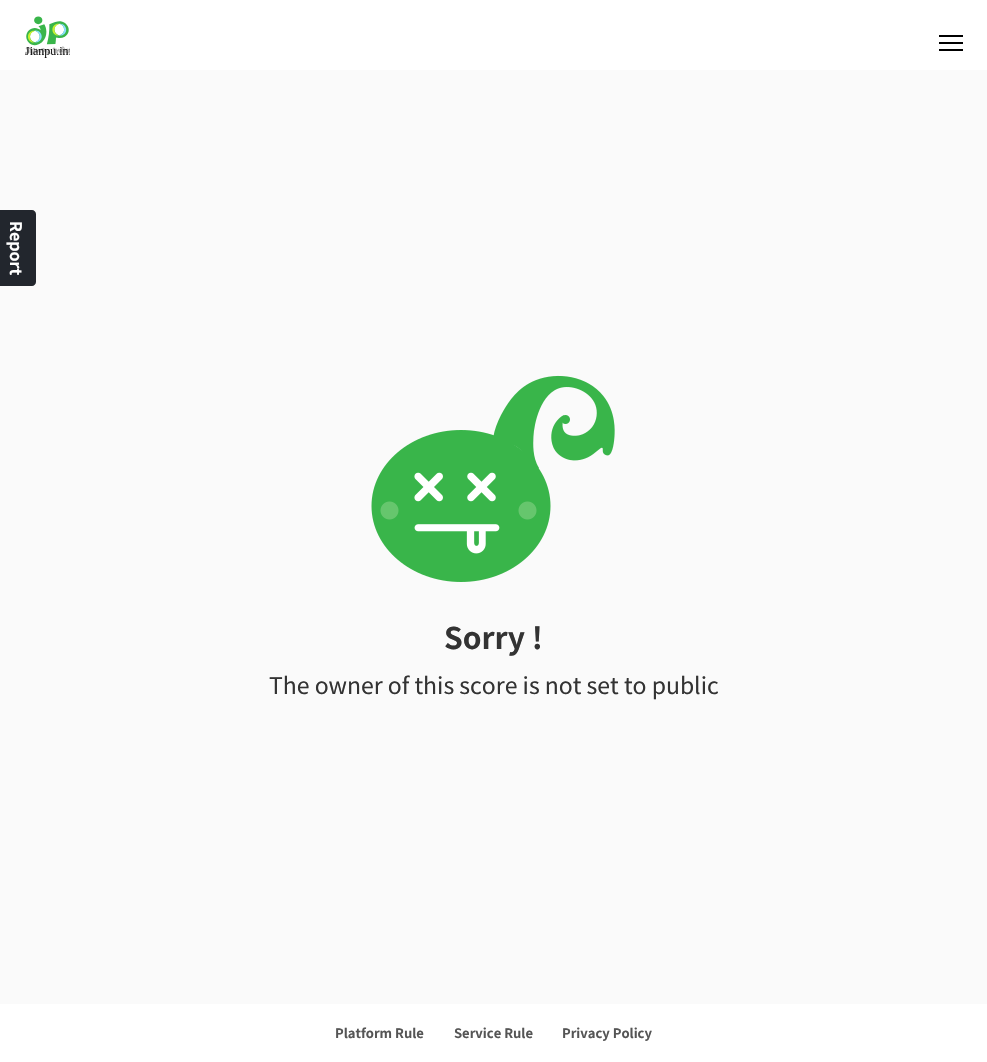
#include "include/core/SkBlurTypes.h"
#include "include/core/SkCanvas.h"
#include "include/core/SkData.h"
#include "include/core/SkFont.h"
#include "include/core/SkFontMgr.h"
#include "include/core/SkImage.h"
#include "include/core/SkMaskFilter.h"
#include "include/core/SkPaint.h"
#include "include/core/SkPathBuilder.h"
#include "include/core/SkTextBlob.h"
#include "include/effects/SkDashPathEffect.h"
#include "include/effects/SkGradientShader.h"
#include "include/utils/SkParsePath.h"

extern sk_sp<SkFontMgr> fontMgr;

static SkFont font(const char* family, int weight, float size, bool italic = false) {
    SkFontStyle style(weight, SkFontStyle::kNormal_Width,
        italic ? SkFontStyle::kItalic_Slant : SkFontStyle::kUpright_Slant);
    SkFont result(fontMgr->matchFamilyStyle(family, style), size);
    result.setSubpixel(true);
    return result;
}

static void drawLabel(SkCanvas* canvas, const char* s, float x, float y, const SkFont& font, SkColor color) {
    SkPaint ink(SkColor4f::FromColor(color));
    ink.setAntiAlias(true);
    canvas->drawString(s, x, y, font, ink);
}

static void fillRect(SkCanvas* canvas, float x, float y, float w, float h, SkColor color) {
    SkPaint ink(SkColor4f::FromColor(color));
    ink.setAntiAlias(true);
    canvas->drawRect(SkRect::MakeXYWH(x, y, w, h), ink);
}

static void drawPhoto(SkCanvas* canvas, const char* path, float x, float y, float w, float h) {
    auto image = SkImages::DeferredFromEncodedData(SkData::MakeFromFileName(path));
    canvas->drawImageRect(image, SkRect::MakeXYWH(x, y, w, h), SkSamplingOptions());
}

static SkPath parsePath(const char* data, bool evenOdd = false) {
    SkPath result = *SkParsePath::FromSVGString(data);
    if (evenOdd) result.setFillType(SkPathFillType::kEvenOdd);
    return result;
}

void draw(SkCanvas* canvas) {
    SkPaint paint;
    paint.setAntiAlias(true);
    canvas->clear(0xFFFFFFFF);
    drawPhoto(canvas, "assets/img1.png", 25, 16, 45, 42);
    fillRect(canvas, 939, 35, 24, 2, 0xFF000000);
    fillRect(canvas, 939, 42, 24, 2, 0xFF000000);
    fillRect(canvas, 939, 49, 24, 2, 0xFF000000);
    fillRect(canvas, 0, 70, 987, 934, 0xFFFAFAFA);
    paint.setColor(0xFF22262D);
    canvas->drawPath(parsePath("M0 210H32C34 210 36 212 36 214V282C36 284 34 286 32 286H0Z"), paint);
    SkFont font1 = font("Noto Sans TC", 700, 16);
    canvas->save();
    canvas->rotate(90, 10, 221);
    drawLabel(canvas, "Report", 10, 221, font1, 0xFFFFFFFF);
    canvas->restore();
    drawPhoto(canvas, "assets/img2.png", 371, 375, 244, 207);
    SkFont font2 = font("Noto Sans TC", 700, 30);
    drawLabel(canvas, "Sorry !", 444, 649, font2, 0xFF333333);
    SkFont font3 = font("Noto Sans TC", 400, 23);
    drawLabel(canvas, "The owner of this score is not set to public", 269, 694, font3, 0xFF333333);
    SkFont font4 = font("Noto Sans TC", 700, 13);
    drawLabel(canvas, "Platform Rule", 335, 1038, font4, 0xFF555555);
    drawLabel(canvas, "Service Rule", 454, 1038, font4, 0xFF555555);
    drawLabel(canvas, "Privacy Policy", 562, 1038, font4, 0xFF555555);
}
